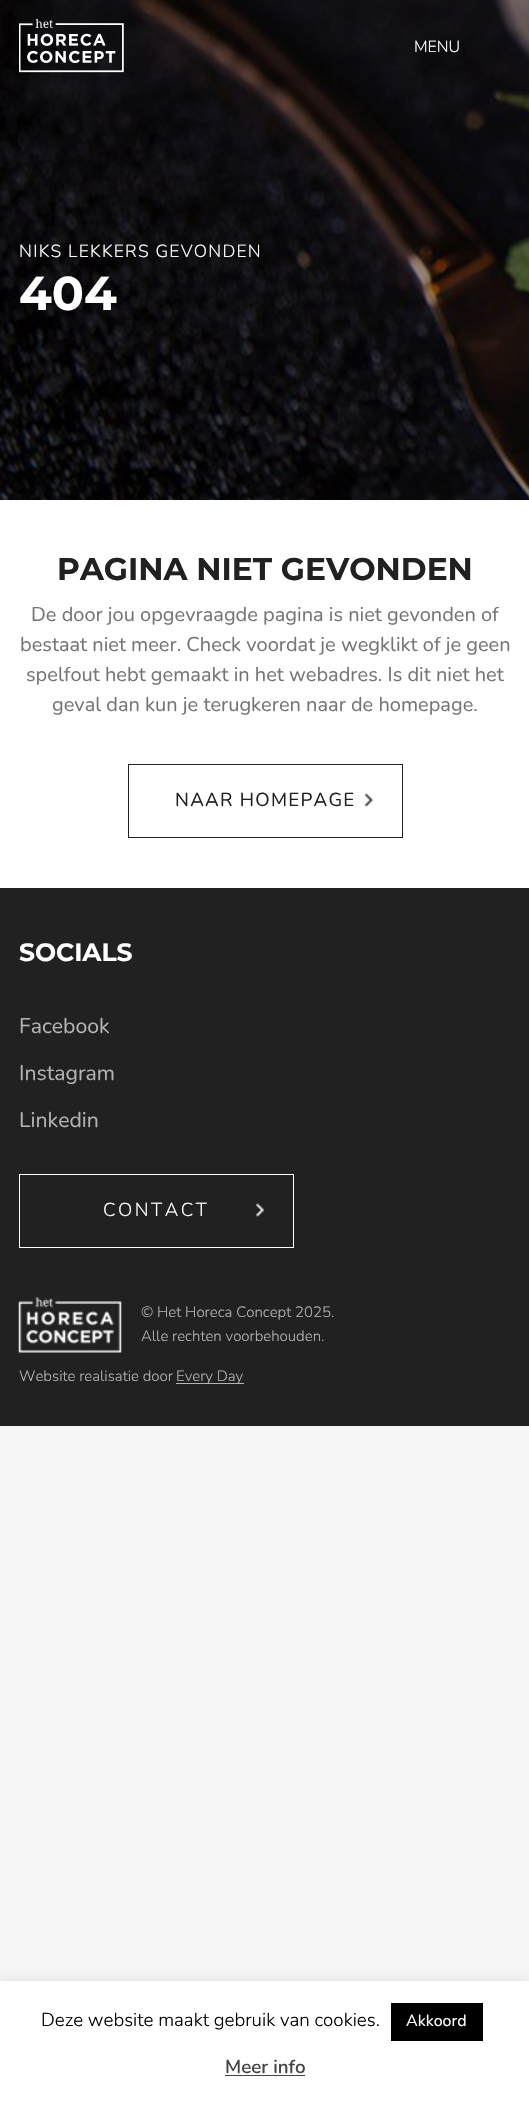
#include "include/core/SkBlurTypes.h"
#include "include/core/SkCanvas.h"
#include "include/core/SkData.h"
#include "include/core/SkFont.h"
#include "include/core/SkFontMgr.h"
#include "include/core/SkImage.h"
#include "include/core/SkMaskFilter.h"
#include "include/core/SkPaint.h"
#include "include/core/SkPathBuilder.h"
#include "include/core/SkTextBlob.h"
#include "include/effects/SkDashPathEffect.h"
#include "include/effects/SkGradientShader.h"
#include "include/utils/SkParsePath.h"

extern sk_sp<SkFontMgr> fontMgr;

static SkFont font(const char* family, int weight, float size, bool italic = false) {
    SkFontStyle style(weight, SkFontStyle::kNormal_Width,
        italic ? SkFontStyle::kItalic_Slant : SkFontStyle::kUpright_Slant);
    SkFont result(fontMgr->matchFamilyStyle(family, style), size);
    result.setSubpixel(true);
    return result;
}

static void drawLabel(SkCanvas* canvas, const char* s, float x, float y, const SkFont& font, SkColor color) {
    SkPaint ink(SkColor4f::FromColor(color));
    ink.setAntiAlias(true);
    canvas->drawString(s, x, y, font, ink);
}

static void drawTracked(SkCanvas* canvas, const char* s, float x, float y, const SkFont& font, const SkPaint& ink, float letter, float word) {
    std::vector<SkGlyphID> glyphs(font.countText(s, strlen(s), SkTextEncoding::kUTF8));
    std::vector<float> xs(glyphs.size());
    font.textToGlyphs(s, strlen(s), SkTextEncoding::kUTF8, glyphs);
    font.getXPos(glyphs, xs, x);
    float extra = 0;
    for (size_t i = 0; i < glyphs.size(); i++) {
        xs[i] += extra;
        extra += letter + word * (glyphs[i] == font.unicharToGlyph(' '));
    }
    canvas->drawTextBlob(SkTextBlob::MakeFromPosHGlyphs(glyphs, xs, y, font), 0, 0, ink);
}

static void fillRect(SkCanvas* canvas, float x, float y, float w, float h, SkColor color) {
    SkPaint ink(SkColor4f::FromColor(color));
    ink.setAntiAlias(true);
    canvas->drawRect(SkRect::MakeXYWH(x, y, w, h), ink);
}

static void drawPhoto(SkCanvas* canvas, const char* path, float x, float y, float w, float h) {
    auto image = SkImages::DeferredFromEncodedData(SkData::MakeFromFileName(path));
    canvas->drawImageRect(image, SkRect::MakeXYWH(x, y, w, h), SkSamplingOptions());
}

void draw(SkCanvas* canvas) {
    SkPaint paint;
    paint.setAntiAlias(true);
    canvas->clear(0xFFF6F6F6);
    fillRect(canvas, 0, 500, 529, 388, 0xFFFFFFFF);
    drawPhoto(canvas, "assets/img2.png", 0, 0, 529, 500);
    drawPhoto(canvas, "assets/img1.png", 19, 19, 105, 54);
    SkFont font1 = font("Nunito", 300, 16);
    drawLabel(canvas, "MENU", 414, 52, font1, 0xFFFFFFFF);
    SkFont font2 = font("Nunito", 300, 17.5f);
    paint.setColor(0xFFFFFFFF);
    drawTracked(canvas, "NIKS LEKKERS GEVONDEN", 19, 257, font2, paint, 1.25f, 0);
    SkFont font3 = font("Montserrat", 700, 47.5f);
    drawLabel(canvas, "404", 19, 310, font3, 0xFFFFFFFF);
    SkFont font4 = font("Montserrat", 700, 31.25f);
    drawLabel(canvas, "PAGINA NIET GEVONDEN", 57, 580, font4, 0xFF212121);
    SkFont font5 = font("Nunito", 400, 20);
    drawLabel(canvas, "De door jou opgevraagde pagina is niet gevonden of", 31, 621, font5, 0xFF757575);
    drawLabel(canvas, "bestaat niet meer. Check voordat je wegklikt of je geen", 20, 651, font5, 0xFF757575);
    drawLabel(canvas, "spelfout hebt gemaakt in het webadres. Is dit niet het", 26, 681, font5, 0xFF757575);
    drawLabel(canvas, "geval dan kun je terugkeren naar de homepage.", 52, 711, font5, 0xFF757575);
    paint.setStroke(true);
    paint.setStrokeWidth(1);
    paint.setColor(0xFF212121);
    canvas->drawRect(SkRect::MakeXYWH(128.5f, 764.5f, 274, 73), paint);
    SkFont font6 = font("Nunito", 400, 18.75f);
    paint.setStroke(false);
    drawTracked(canvas, "NAAR HOMEPAGE", 175, 806, font6, paint, 1.25f, 0);
    drawPhoto(canvas, "assets/img3.png", 364, 793, 9, 14);
    fillRect(canvas, 0, 888, 529, 538, 0xFF212121);
    SkFont font7 = font("Montserrat", 700, 25);
    drawLabel(canvas, "SOCIALS", 19, 961, font7, 0xFFFFFFFF);
    SkFont font8 = font("Nunito", 400, 21.25f);
    drawLabel(canvas, "Facebook", 19, 1033, font8, 0xFFB3B3B3);
    drawLabel(canvas, "Instagram", 19, 1080, font8, 0xFFB3B3B3);
    drawLabel(canvas, "Linkedin", 19, 1127, font8, 0xFFB3B3B3);
    paint.setStroke(true);
    paint.setColor(0xFFFFFFFF);
    canvas->drawRect(SkRect::MakeXYWH(19.5f, 1174.5f, 274, 73), paint);
    SkFont font9 = font("Nunito", 300, 18.75f);
    paint.setStroke(false);
    drawTracked(canvas, "CONTACT", 103, 1216, font9, paint, 2.5f, 0);
    drawPhoto(canvas, "assets/img4.png", 256, 1203, 8, 14);
    drawPhoto(canvas, "assets/img5.png", 18, 1297, 104, 56);
    SkFont font10 = font("Nunito", 300, 15);
    drawLabel(canvas, "© Het Horeca Concept 2025.", 141, 1317, font10, 0xFFB3B3B3);
    drawLabel(canvas, "Alle rechten voorbehouden.", 141, 1341, font10, 0xFFB3B3B3);
    drawLabel(canvas, "Website realisatie door", 19, 1381, font10, 0xFFB3B3B3);
    fillRect(canvas, 176, 1383, 68, 1, 0xFFB3B3B3);
    drawLabel(canvas, "Every Day", 176, 1381, font10, 0xFFB3B3B3);
    paint.setColor(0x4DACABAB);
    paint.setMaskFilter(SkMaskFilter::MakeBlur(kNormal_SkBlurStyle, 6));
    canvas->drawRect(SkRect::MakeXYWH(0, 1980, 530, 121), paint);
    paint.setMaskFilter(nullptr);
    fillRect(canvas, 0, 1981, 529, 121, 0xFFFFFFFF);
    drawLabel(canvas, "Deze website maakt gebruik van cookies.", 41, 2026, font9, 0xFF000000);
    fillRect(canvas, 391, 2003, 92, 38, 0xFF000000);
    SkFont font11 = font("Nunito", 400, 16);
    drawLabel(canvas, "Akkoord", 406, 2026, font11, 0xFFFFFFFF);
    SkFont font12 = font("Nunito", 600, 18.75f);
    drawLabel(canvas, "Meer info", 225, 2073, font12, 0xFF444444);
    fillRect(canvas, 225, 2075, 80, 1, 0xFF444444);
}
